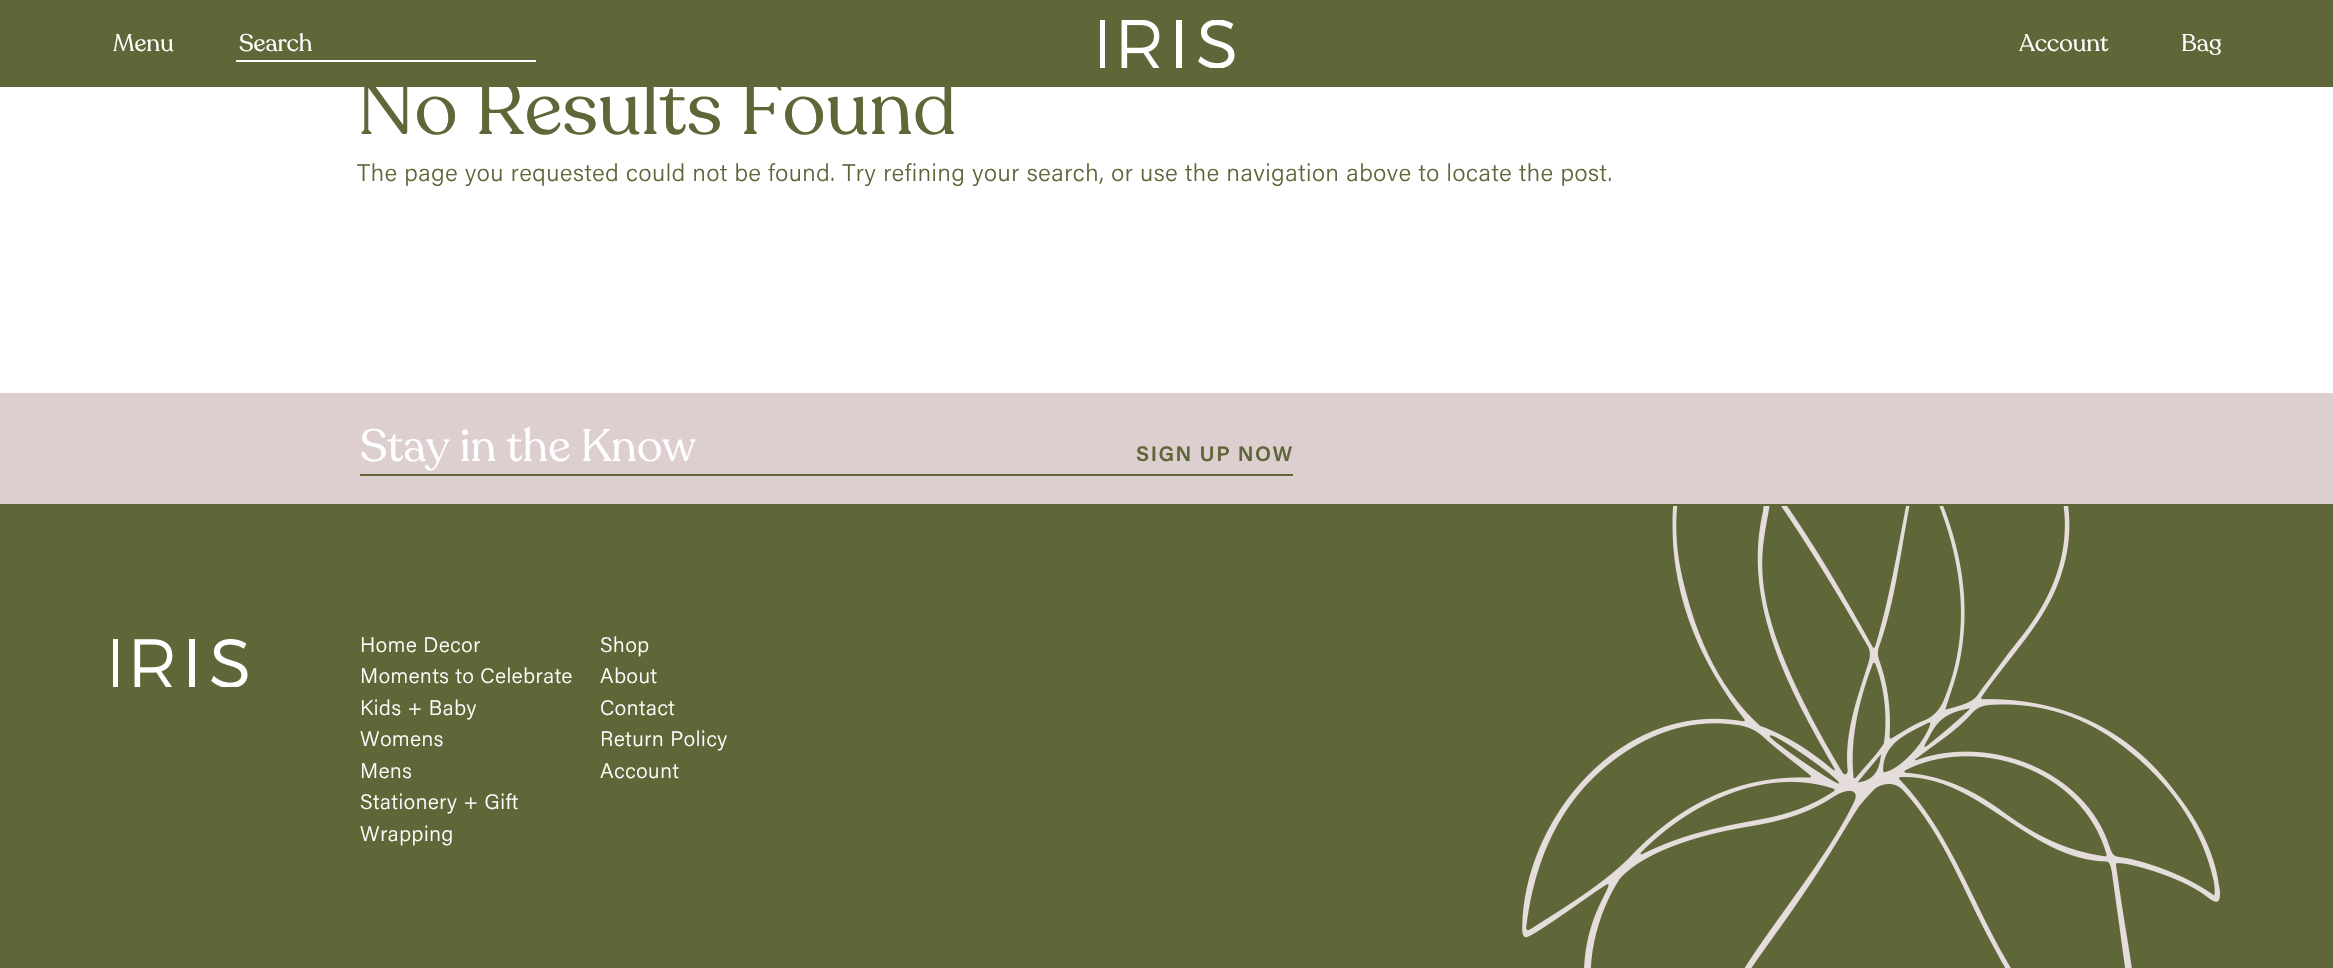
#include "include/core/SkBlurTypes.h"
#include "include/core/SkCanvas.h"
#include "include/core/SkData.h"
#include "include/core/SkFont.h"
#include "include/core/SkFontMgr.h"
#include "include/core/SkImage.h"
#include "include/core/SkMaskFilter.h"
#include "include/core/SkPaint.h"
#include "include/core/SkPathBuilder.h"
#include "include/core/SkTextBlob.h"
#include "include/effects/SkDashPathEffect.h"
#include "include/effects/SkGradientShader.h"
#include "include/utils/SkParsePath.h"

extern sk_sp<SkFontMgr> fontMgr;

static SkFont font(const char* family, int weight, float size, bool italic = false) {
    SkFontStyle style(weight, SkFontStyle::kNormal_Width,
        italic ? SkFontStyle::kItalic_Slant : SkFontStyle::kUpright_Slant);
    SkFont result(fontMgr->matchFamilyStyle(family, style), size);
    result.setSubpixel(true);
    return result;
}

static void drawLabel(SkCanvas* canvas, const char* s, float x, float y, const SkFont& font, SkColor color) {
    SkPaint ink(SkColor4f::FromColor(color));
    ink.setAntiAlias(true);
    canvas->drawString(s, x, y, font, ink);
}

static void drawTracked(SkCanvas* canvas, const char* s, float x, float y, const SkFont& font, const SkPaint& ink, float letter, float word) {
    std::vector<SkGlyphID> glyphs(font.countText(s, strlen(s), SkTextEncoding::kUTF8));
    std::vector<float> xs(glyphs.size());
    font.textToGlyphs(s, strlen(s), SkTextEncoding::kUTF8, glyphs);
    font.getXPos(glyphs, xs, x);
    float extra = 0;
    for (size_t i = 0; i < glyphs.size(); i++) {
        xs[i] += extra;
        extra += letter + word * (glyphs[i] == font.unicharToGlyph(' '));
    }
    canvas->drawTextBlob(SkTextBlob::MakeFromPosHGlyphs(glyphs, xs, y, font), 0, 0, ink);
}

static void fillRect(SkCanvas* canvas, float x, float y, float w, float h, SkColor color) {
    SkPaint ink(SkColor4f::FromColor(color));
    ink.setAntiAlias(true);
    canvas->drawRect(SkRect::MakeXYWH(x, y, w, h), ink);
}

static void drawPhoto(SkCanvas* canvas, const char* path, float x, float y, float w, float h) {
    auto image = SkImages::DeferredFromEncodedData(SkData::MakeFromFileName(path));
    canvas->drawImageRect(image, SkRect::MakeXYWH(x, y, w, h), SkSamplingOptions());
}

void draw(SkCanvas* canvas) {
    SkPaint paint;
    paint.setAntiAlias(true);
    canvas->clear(0xFFFFFFFF);
    fillRect(canvas, 0, 0, 2333, 87, 0xFF5F6638);
    SkFont font1 = font("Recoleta", 400, 24);
    drawLabel(canvas, "Menu", 113, 51, font1, 0xFFFFFFFF);
    fillRect(canvas, 236, 60, 300, 2, 0xFFFFFFFF);
    drawLabel(canvas, "Search", 239, 51, font1, 0xFFFFFFFF);
    drawPhoto(canvas, "assets/img1.png", 1100, 20, 135, 48);
    drawLabel(canvas, "Account", 2019, 51, font1, 0xFFFFFFFF);
    drawLabel(canvas, "Bag", 2181, 51, font1, 0xFFFFFFFF);
    SkFont font2 = font("Recoleta", 400, 76.5f);
    drawLabel(canvas, "No Results Found", 357, 134, font2, 0xFF5F6638);
    SkFont font3 = font("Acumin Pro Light", 300, 24);
    paint.setColor(0xFF5F6638);
    drawTracked(canvas, "The page you requested could not be found. Try refining your search, or use the navigation above to locate the post.", 357, 181, font3, paint, 0.6f, 0);
    fillRect(canvas, 0, 393, 2333, 111, 0xFFDDCFD0);
    fillRect(canvas, 0, 504, 2333, 464, 0xFF5F6638);
    fillRect(canvas, 360, 474, 933, 2, 0xFF5F6638);
    SkFont font4 = font("Recoleta", 400, 45);
    drawLabel(canvas, "Stay in the Know", 360, 461, font4, 0xFFFFFFFF);
    SkFont font5 = font("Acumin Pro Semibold", 600, 21);
    drawTracked(canvas, "SIGN UP NOW", 1136, 461, font5, paint, 1.5f, 0);
    drawPhoto(canvas, "assets/img2.png", 1522, 506, 698, 462);
    drawPhoto(canvas, "assets/img3.png", 113, 639, 135, 48);
    SkFont font6 = font("Acumin Pro Light", 300, 21);
    paint.setColor(0xFFFFFFFF);
    drawTracked(canvas, "Home Decor", 360, 652, font6, paint, 0.6f, 0);
    drawTracked(canvas, "Moments to Celebrate", 360, 683, font6, paint, 0.6f, 0);
    drawTracked(canvas, "Kids + Baby", 360, 715, font6, paint, 0.6f, 0);
    drawTracked(canvas, "Womens", 360, 746, font6, paint, 0.6f, 0);
    drawTracked(canvas, "Mens", 360, 778, font6, paint, 0.6f, 0);
    drawTracked(canvas, "Stationery + Gift", 360, 809, font6, paint, 0.6f, 0);
    drawTracked(canvas, "Wrapping", 360, 841, font6, paint, 0.6f, 0);
    drawTracked(canvas, "Shop", 600, 652, font6, paint, 0.6f, 0);
    drawTracked(canvas, "About", 600, 683, font6, paint, 0.6f, 0);
    drawTracked(canvas, "Contact", 600, 715, font6, paint, 0.6f, 0);
    drawTracked(canvas, "Return Policy", 600, 746, font6, paint, 0.6f, 0);
    drawTracked(canvas, "Account", 600, 778, font6, paint, 0.6f, 0);
}
